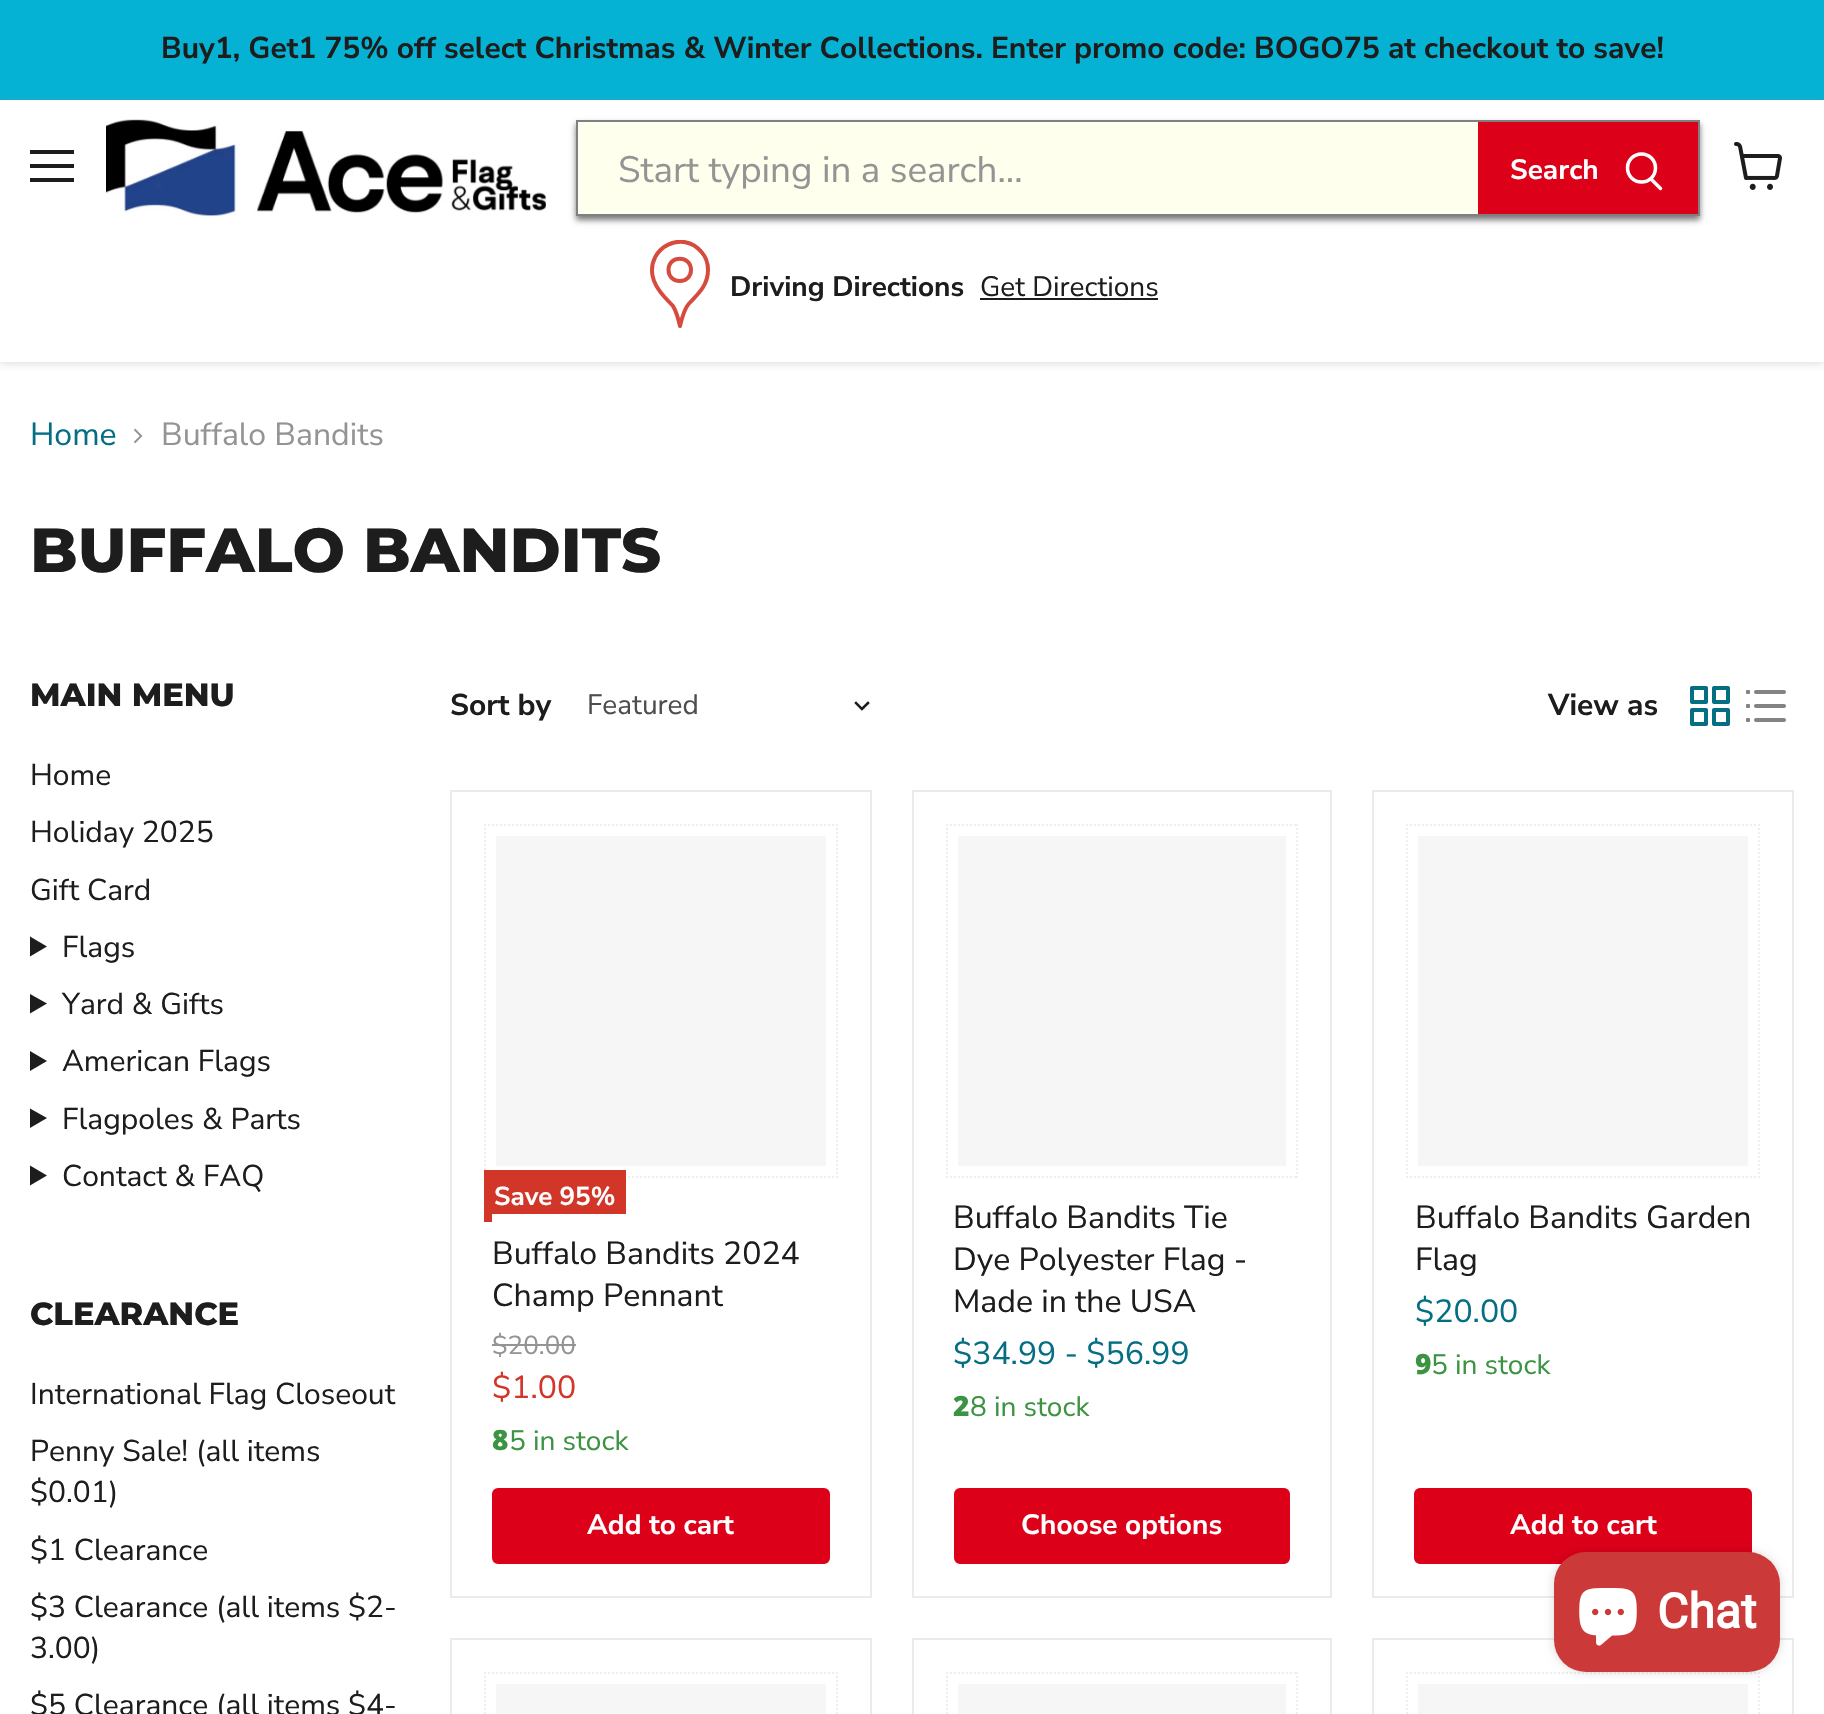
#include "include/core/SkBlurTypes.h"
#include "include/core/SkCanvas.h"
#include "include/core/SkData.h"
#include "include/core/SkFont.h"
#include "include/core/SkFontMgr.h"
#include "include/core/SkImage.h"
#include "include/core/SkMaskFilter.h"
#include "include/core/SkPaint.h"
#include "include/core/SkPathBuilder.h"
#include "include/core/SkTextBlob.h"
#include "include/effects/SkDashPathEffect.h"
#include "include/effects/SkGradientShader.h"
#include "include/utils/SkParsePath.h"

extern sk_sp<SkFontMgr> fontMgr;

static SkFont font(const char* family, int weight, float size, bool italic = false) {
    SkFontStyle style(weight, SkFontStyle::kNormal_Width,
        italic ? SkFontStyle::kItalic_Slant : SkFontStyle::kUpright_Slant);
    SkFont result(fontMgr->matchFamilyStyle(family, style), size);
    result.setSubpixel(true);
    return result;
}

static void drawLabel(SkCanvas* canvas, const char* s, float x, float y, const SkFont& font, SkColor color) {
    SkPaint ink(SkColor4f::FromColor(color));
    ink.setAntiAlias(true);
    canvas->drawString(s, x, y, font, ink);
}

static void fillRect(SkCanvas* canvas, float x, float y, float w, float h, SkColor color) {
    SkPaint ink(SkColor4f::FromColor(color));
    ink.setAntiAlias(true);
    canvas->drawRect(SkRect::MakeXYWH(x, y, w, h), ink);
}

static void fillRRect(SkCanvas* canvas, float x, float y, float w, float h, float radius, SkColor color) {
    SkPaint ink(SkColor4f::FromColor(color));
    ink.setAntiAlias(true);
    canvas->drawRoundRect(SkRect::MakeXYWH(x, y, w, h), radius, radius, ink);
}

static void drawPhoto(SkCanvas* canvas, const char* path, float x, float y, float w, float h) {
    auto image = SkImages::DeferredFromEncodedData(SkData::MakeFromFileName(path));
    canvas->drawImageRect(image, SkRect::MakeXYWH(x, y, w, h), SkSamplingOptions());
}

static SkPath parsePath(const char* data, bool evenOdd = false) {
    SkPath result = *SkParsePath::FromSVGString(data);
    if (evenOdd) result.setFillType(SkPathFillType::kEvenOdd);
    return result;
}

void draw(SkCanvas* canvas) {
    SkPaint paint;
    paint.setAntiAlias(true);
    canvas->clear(0xFFFFFFFF);
    fillRect(canvas, 0, 0, 1824, 100, 0xFF05B2D3);
    SkFont font1 = font("Nunito Sans", 700, 30);
    drawLabel(canvas, "Buy1, Get1 75% off select Christmas & Winter Collections. Enter promo code: BOGO75 at checkout to save!", 161, 58, font1, 0xFF1D1D1D);
    canvas->save();
    canvas->clipPath(parsePath("M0 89H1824V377H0ZM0 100H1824V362H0Z", true), true);
    paint.setColor(0x40808080);
    paint.setMaskFilter(SkMaskFilter::MakeBlur(kNormal_SkBlurStyle, 4));
    canvas->drawRect(SkRect::MakeXYWH(0, 102, 1824, 262), paint);
    paint.setMaskFilter(nullptr);
    canvas->restore();
    fillRect(canvas, 30, 150, 44, 4, 0xFF1D1D1D);
    fillRect(canvas, 30, 164, 44, 4, 0xFF1D1D1D);
    fillRect(canvas, 30, 178, 44, 4, 0xFF1D1D1D);
    drawPhoto(canvas, "assets/img1.png", 106, 119, 440, 99);
    paint.setColor(0x87000000);
    paint.setMaskFilter(SkMaskFilter::MakeBlur(kNormal_SkBlurStyle, 3));
    canvas->drawRect(SkRect::MakeXYWH(576, 124, 1124, 96), paint);
    paint.setMaskFilter(nullptr);
    paint.setStroke(true);
    paint.setStrokeWidth(2);
    paint.setColor(0xFF808080);
    canvas->drawRect(SkRect::MakeXYWH(577, 121, 1122, 94), paint);
    fillRect(canvas, 578, 122, 900, 92, 0xFFFFFFEE);
    SkFont font2 = font("Nunito Sans", 400, 36.75f);
    drawLabel(canvas, "Start typing in a search...", 618, 182, font2, 0xFF949494);
    fillRect(canvas, 1478, 122, 220, 92, 0xFFDC0019);
    SkFont font3 = font("Nunito Sans", 700, 28);
    drawLabel(canvas, "Search", 1510, 179, font3, 0xFFFFFFFF);
    paint.setStrokeWidth(3.5f);
    paint.setStrokeCap(SkPaint::kRound_Cap);
    paint.setColor(0xFFFFFFFF);
    canvas->drawPath(parsePath("M1660.5 188.5L1651 179"), paint);
    paint.setStrokeCap(SkPaint::kButt_Cap);
    canvas->drawCircle(1641.5f, 168, 14, paint);
    canvas->save();
    canvas->clipRect(SkRect::MakeXYWH(650, 240, 60, 88));
    paint.setStrokeWidth(4);
    paint.setStrokeCap(SkPaint::kRound_Cap);
    paint.setStrokeJoin(SkPaint::kRound_Join);
    paint.setColor(0xFFD74A3E);
    canvas->drawPath(parsePath("M708 270C708 286 697 295 689 303.5C684 309 680 326 680 326C678.5 319.5 676.5 312 673 306L664.5 297C659 291 654 284 652.5 275.5C647.5 247 683 229.5 701.5 252C706 257 708 263.5 708 270Z"), paint);
    canvas->restore();
    canvas->drawPath(parsePath("M668.5 270C668.5 284.5 691 284.5 691 270C691 255 668.5 255 668.5 270Z"), paint);
    drawLabel(canvas, "Driving Directions", 730, 296, font3, 0xFF1D1D1D);
    SkFont font4 = font("Nunito Sans", 400, 28);
    drawLabel(canvas, "Get Directions", 980, 296, font4, 0xFF1D1D1D);
    fillRect(canvas, 980, 298, 178, 2, 0xFF1D1D1D);
    drawPhoto(canvas, "assets/img2.png", 1734, 142, 48, 48);
    SkFont font5 = font("Nunito Sans", 400, 32);
    drawLabel(canvas, "Home", 30, 445, font5, 0xFF046E82);
    drawPhoto(canvas, "assets/img3.png", 134, 428, 9, 16);
    drawLabel(canvas, "Buffalo Bandits", 161, 445, font5, 0xFF949494);
    SkFont font6 = font("Montserrat", 800, 62);
    drawLabel(canvas, "BUFFALO BANDITS", 30, 572, font6, 0xFF1D1D1D);
    SkFont font7 = font("Montserrat", 800, 32);
    drawLabel(canvas, "MAIN MENU", 30, 706, font7, 0xFF1D1D1D);
    SkFont font8 = font("Nunito Sans", 400, 30);
    drawLabel(canvas, "Home", 30, 785, font8, 0xFF1D1D1D);
    drawLabel(canvas, "Holiday 2025", 30, 842, font8, 0xFF1D1D1D);
    drawLabel(canvas, "Gift Card", 30, 900, font8, 0xFF1D1D1D);
    paint.setStroke(false);
    paint.setColor(0xFF1D1D1D);
    canvas->drawPath(parsePath("M30 936.5L47 946.5L30 956.5Z"), paint);
    drawLabel(canvas, "Flags", 62, 957, font8, 0xFF1D1D1D);
    canvas->drawPath(parsePath("M30 994L47 1003.5L30 1013.5Z"), paint);
    drawLabel(canvas, "Yard & Gifts", 62, 1014, font8, 0xFF1D1D1D);
    canvas->drawPath(parsePath("M30 1051L47 1061L30 1071Z"), paint);
    drawLabel(canvas, "American Flags", 62, 1071, font8, 0xFF1D1D1D);
    canvas->drawPath(parsePath("M30 1108.5L47 1118L30 1128Z"), paint);
    drawLabel(canvas, "Flagpoles & Parts", 62, 1129, font8, 0xFF1D1D1D);
    canvas->drawPath(parsePath("M30 1165.5L47 1175.5L30 1185.5Z"), paint);
    drawLabel(canvas, "Contact & FAQ", 62, 1186, font8, 0xFF1D1D1D);
    drawLabel(canvas, "CLEARANCE", 30, 1325, font7, 0xFF1D1D1D);
    drawLabel(canvas, "International Flag Closeout", 30, 1404, font8, 0xFF1D1D1D);
    drawLabel(canvas, "Penny Sale! (all items", 30, 1461, font8, 0xFF1D1D1D);
    drawLabel(canvas, "$0.01)", 30, 1502, font8, 0xFF1D1D1D);
    drawLabel(canvas, "$1 Clearance", 30, 1560, font8, 0xFF1D1D1D);
    drawLabel(canvas, "$3 Clearance (all items $2-", 30, 1617, font8, 0xFF1D1D1D);
    drawLabel(canvas, "3.00)", 30, 1658, font8, 0xFF1D1D1D);
    drawLabel(canvas, "$5 Clearance (all items $4-", 30, 1715, font8, 0xFF1D1D1D);
    drawLabel(canvas, "Sort by", 450, 715, font1, 0xFF1D1D1D);
    drawLabel(canvas, "Featured", 587, 714, font4, 0xFF4D4D4D);
    paint.setStroke(true);
    paint.setStrokeWidth(2.5f);
    paint.setStrokeCap(SkPaint::kSquare_Cap);
    paint.setStrokeJoin(SkPaint::kMiter_Join);
    canvas->drawPath(parsePath("M862 709L868 703M862 709L856 703"), paint);
    drawLabel(canvas, "View as", 1548, 715, font1, 0xFF1D1D1D);
    drawPhoto(canvas, "assets/img4.png", 1690, 686, 40, 40);
    drawPhoto(canvas, "assets/img5.png", 1746, 690, 40, 32);
    paint.setStrokeWidth(2);
    paint.setStrokeCap(SkPaint::kButt_Cap);
    paint.setColor(0xFFEBEBEB);
    canvas->drawRect(SkRect::MakeXYWH(451, 791, 420, 806), paint);
    paint.setColor(0xFFEEEEEE);
    paint.setPathEffect(SkDashPathEffect::Make({{2, 2}}, 0));
    canvas->drawPath(parsePath("M484 825H838"), paint);
    paint.setPathEffect(nullptr);
    paint.setPathEffect(SkDashPathEffect::Make({{2, 2}}, 0));
    canvas->drawPath(parsePath("M837 824V1178"), paint);
    paint.setPathEffect(nullptr);
    paint.setPathEffect(SkDashPathEffect::Make({{2, 2}}, 0));
    canvas->drawPath(parsePath("M484 1177H838"), paint);
    paint.setPathEffect(nullptr);
    paint.setPathEffect(SkDashPathEffect::Make({{2, 2}}, 0));
    canvas->drawPath(parsePath("M485 824V1178"), paint);
    paint.setPathEffect(nullptr);
    fillRect(canvas, 496, 836, 330, 330, 0xFFF6F6F6);
    fillRect(canvas, 484, 1170, 76, 52, 0xFFD23628);
    fillRect(canvas, 560, 1170, 66, 44, 0xFFD23628);
    SkFont font9 = font("Nunito Sans", 700, 26);
    drawLabel(canvas, "Save 95%", 494, 1205, font9, 0xFFFFFFFF);
    fillRect(canvas, 492, 1214, 68, 8, 0xFFFFFFFF);
    drawLabel(canvas, "Buffalo Bandits 2024", 492, 1264, font5, 0xFF1D1D1D);
    drawLabel(canvas, "Champ Pennant", 492, 1306, font5, 0xFF1D1D1D);
    SkFont font10 = font("Nunito Sans", 400, 26);
    drawLabel(canvas, "$20.00", 492, 1354, font10, 0xFF949494);
    fillRect(canvas, 492, 1344, 84, 2, 0xFF949494);
    drawLabel(canvas, "$1.00", 492, 1398, font5, 0xFFD23628);
    SkFont font11 = font("Noto Sans", 900, 28);
    drawLabel(canvas, "8", 492, 1450, font11, 0xFF3C9342);
    drawLabel(canvas, "5 in stock", 509, 1450, font4, 0xFF3C9342);
    paint.setStroke(false);
    paint.setColor(0xFFDC0019);
    canvas->drawRoundRect(SkRect::MakeXYWH(493, 1489, 336, 74), 5, 5, paint);
    paint.setStroke(true);
    canvas->drawRoundRect(SkRect::MakeXYWH(493, 1489, 336, 74), 5, 5, paint);
    drawLabel(canvas, "Add to cart", 587, 1534, font3, 0xFFFFFFFF);
    paint.setColor(0xFFEBEBEB);
    canvas->drawRect(SkRect::MakeXYWH(913, 791, 418, 806), paint);
    paint.setColor(0xFFEEEEEE);
    paint.setPathEffect(SkDashPathEffect::Make({{2, 2}}, 0));
    canvas->drawPath(parsePath("M946 825H1298"), paint);
    paint.setPathEffect(nullptr);
    paint.setPathEffect(SkDashPathEffect::Make({{2, 2}}, 0));
    canvas->drawPath(parsePath("M1297 824V1178"), paint);
    paint.setPathEffect(nullptr);
    paint.setPathEffect(SkDashPathEffect::Make({{2, 2}}, 0));
    canvas->drawPath(parsePath("M946 1177H1298"), paint);
    paint.setPathEffect(nullptr);
    paint.setPathEffect(SkDashPathEffect::Make({{2, 2}}, 0));
    canvas->drawPath(parsePath("M947 824V1178"), paint);
    paint.setPathEffect(nullptr);
    fillRect(canvas, 958, 836, 328, 330, 0xFFF6F6F6);
    drawLabel(canvas, "Buffalo Bandits Tie", 953, 1228, font5, 0xFF1D1D1D);
    drawLabel(canvas, "Dye Polyester Flag -", 953, 1270, font5, 0xFF1D1D1D);
    drawLabel(canvas, "Made in the USA", 953, 1312, font5, 0xFF1D1D1D);
    drawLabel(canvas, "$34.99 - $56.99", 953, 1364, font5, 0xFF046E82);
    drawLabel(canvas, "2", 953, 1416, font11, 0xFF3C9342);
    drawLabel(canvas, "8 in stock", 970, 1416, font4, 0xFF3C9342);
    paint.setStroke(false);
    paint.setColor(0xFFDC0019);
    canvas->drawRoundRect(SkRect::MakeXYWH(955, 1489, 334, 74), 5, 5, paint);
    paint.setStroke(true);
    canvas->drawRoundRect(SkRect::MakeXYWH(955, 1489, 334, 74), 5, 5, paint);
    drawLabel(canvas, "Choose options", 1021, 1534, font3, 0xFFFFFFFF);
    paint.setColor(0xFFEBEBEB);
    canvas->drawRect(SkRect::MakeXYWH(1373, 791, 420, 806), paint);
    paint.setColor(0xFFEEEEEE);
    paint.setPathEffect(SkDashPathEffect::Make({{2, 2}}, 0));
    canvas->drawPath(parsePath("M1406 825H1760"), paint);
    paint.setPathEffect(nullptr);
    paint.setPathEffect(SkDashPathEffect::Make({{2, 2}}, 0));
    canvas->drawPath(parsePath("M1759 824V1178"), paint);
    paint.setPathEffect(nullptr);
    paint.setPathEffect(SkDashPathEffect::Make({{2, 2}}, 0));
    canvas->drawPath(parsePath("M1406 1177H1760"), paint);
    paint.setPathEffect(nullptr);
    paint.setPathEffect(SkDashPathEffect::Make({{2, 2}}, 0));
    canvas->drawPath(parsePath("M1407 824V1178"), paint);
    paint.setPathEffect(nullptr);
    fillRect(canvas, 1418, 836, 330, 330, 0xFFF6F6F6);
    drawLabel(canvas, "Buffalo Bandits Garden", 1415, 1228, font5, 0xFF1D1D1D);
    drawLabel(canvas, "Flag", 1415, 1270, font5, 0xFF1D1D1D);
    drawLabel(canvas, "$20.00", 1415, 1322, font5, 0xFF046E82);
    drawLabel(canvas, "9", 1415, 1374, font11, 0xFF3C9342);
    drawLabel(canvas, "5 in stock", 1431, 1374, font4, 0xFF3C9342);
    paint.setStroke(false);
    paint.setColor(0xFFDC0019);
    canvas->drawRoundRect(SkRect::MakeXYWH(1415, 1489, 336, 74), 5, 5, paint);
    paint.setStroke(true);
    canvas->drawRoundRect(SkRect::MakeXYWH(1415, 1489, 336, 74), 5, 5, paint);
    drawLabel(canvas, "Add to cart", 1510, 1534, font3, 0xFFFFFFFF);
    paint.setColor(0xFFEBEBEB);
    canvas->drawRect(SkRect::MakeXYWH(451, 1639, 420, 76), paint);
    paint.setColor(0xFFEEEEEE);
    paint.setPathEffect(SkDashPathEffect::Make({{2, 2}}, 0));
    canvas->drawPath(parsePath("M484 1673H838"), paint);
    paint.setPathEffect(nullptr);
    paint.setPathEffect(SkDashPathEffect::Make({{2, 2}}, 0));
    canvas->drawPath(parsePath("M837 1672V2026"), paint);
    paint.setPathEffect(nullptr);
    paint.setPathEffect(SkDashPathEffect::Make({{2, 2}}, 0));
    canvas->drawPath(parsePath("M485 1672V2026"), paint);
    paint.setPathEffect(nullptr);
    fillRect(canvas, 496, 1684, 330, 30, 0xFFF6F6F6);
    paint.setColor(0xFFEBEBEB);
    canvas->drawRect(SkRect::MakeXYWH(913, 1639, 418, 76), paint);
    paint.setColor(0xFFEEEEEE);
    paint.setPathEffect(SkDashPathEffect::Make({{2, 2}}, 0));
    canvas->drawPath(parsePath("M946 1673H1298"), paint);
    paint.setPathEffect(nullptr);
    paint.setPathEffect(SkDashPathEffect::Make({{2, 2}}, 0));
    canvas->drawPath(parsePath("M1297 1672V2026"), paint);
    paint.setPathEffect(nullptr);
    paint.setPathEffect(SkDashPathEffect::Make({{2, 2}}, 0));
    canvas->drawPath(parsePath("M947 1672V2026"), paint);
    paint.setPathEffect(nullptr);
    fillRect(canvas, 958, 1684, 328, 30, 0xFFF6F6F6);
    paint.setColor(0xFFEBEBEB);
    canvas->drawRect(SkRect::MakeXYWH(1373, 1639, 420, 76), paint);
    paint.setColor(0xFFEEEEEE);
    paint.setPathEffect(SkDashPathEffect::Make({{2, 2}}, 0));
    canvas->drawPath(parsePath("M1406 1673H1760"), paint);
    paint.setPathEffect(nullptr);
    paint.setPathEffect(SkDashPathEffect::Make({{2, 2}}, 0));
    canvas->drawPath(parsePath("M1759 1672V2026"), paint);
    paint.setPathEffect(nullptr);
    paint.setPathEffect(SkDashPathEffect::Make({{2, 2}}, 0));
    canvas->drawPath(parsePath("M1407 1672V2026"), paint);
    paint.setPathEffect(nullptr);
    fillRect(canvas, 1418, 1684, 330, 30, 0xFFF6F6F6);
    paint.setStroke(false);
    paint.setColor(0x26000000);
    paint.setMaskFilter(SkMaskFilter::MakeBlur(kNormal_SkBlurStyle, 5));
    canvas->drawRoundRect(SkRect::MakeXYWH(1554, 1552, 226, 120), 32, 32, paint);
    paint.setMaskFilter(nullptr);
    fillRRect(canvas, 1554, 1552, 226, 120, 32, 0xFFCC3939);
    drawPhoto(canvas, "assets/img6.png", 1579, 1588, 58, 58);
    SkFont font12 = font("Roboto", 700, 48);
    drawLabel(canvas, "Chat", 1657, 1628, font12, 0xFFFFFFFF);
}
